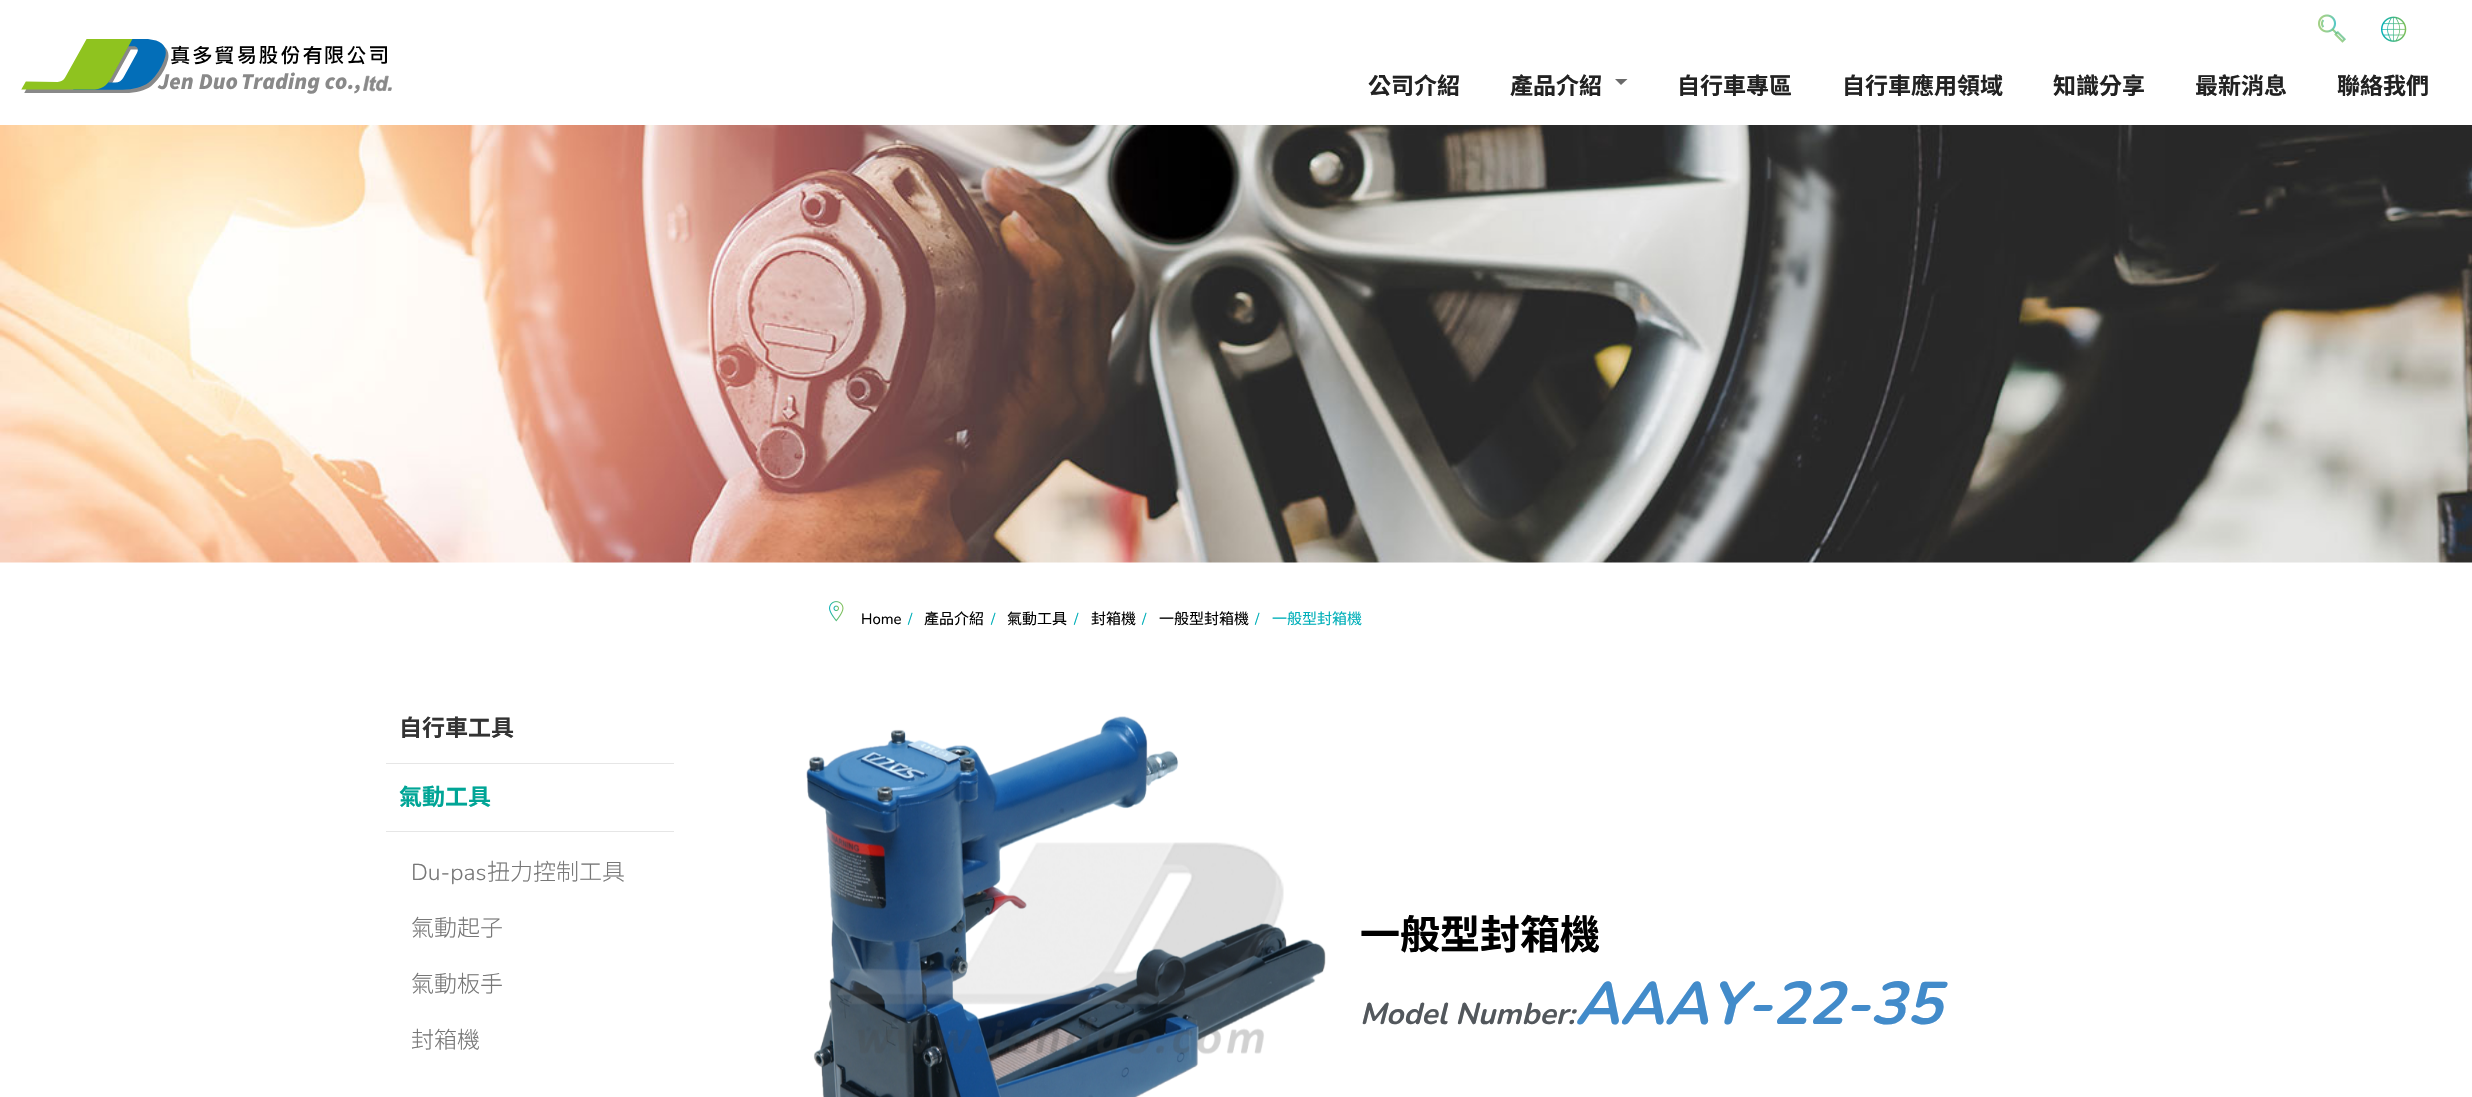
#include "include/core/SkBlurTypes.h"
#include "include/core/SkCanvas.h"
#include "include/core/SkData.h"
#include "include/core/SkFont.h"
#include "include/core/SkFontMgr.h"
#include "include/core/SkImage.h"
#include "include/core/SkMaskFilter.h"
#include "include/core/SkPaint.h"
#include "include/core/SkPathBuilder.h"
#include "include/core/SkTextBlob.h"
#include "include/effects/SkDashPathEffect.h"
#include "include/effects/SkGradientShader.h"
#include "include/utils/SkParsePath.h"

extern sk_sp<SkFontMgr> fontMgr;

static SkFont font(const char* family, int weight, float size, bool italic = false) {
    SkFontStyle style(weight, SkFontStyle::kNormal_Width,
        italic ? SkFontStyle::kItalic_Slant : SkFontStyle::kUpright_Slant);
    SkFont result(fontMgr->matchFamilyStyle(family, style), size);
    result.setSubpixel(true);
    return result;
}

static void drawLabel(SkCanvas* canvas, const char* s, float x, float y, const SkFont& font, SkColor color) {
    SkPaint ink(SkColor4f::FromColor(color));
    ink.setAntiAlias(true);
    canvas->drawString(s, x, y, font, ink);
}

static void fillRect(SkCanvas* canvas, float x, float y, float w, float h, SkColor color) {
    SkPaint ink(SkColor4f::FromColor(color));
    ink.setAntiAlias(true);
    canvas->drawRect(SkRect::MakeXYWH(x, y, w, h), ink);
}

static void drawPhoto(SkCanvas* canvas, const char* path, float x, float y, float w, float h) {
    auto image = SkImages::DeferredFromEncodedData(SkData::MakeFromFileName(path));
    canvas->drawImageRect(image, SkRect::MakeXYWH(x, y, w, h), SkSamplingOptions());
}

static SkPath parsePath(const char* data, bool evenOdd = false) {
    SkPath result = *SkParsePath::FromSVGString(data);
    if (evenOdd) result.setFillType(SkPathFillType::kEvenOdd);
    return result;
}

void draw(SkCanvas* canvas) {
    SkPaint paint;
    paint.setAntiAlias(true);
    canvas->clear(0xFFFFFFFF);
    drawPhoto(canvas, "assets/img1.png", 21, 39, 371, 55);
    drawPhoto(canvas, "assets/img2.png", 2318, 14, 28, 29);
    drawPhoto(canvas, "assets/img3.png", 2381, 16, 26, 26);
    SkFont font1 = font("Noto Sans TC", 700, 23);
    drawLabel(canvas, "公司介紹", 1368, 94, font1, 0xFF222222);
    drawLabel(canvas, "產品介紹", 1510, 94, font1, 0xFF222222);
    paint.setColor(0xFF6A6A6A);
    canvas->drawPath(parsePath("M1615 79H1627.5L1621 85Z"), paint);
    drawLabel(canvas, "自行車專區", 1677, 94, font1, 0xFF222222);
    drawLabel(canvas, "自行車應用領域", 1842, 94, font1, 0xFF222222);
    drawLabel(canvas, "知識分享", 2053, 94, font1, 0xFF222222);
    drawLabel(canvas, "最新消息", 2195, 94, font1, 0xFF222222);
    drawLabel(canvas, "聯絡我們", 2337, 94, font1, 0xFF222222);
    drawPhoto(canvas, "assets/img4.png", 0, 125, 2472, 438);
    fillRect(canvas, 386, 763, 288, 1, 0xFFE6E6E6);
    drawLabel(canvas, "自行車工具", 399, 736, font1, 0xFF333333);
    fillRect(canvas, 386, 831, 288, 1, 0xFFE6E6E6);
    drawLabel(canvas, "氣動工具", 399, 805, font1, 0xFF00A596);
    SkFont font2 = font("Nunito", 300, 23);
    drawLabel(canvas, "Du-pas", 411, 880, font2, 0xFF777777);
    SkFont font3 = font("Noto Sans TC", 300, 23);
    drawLabel(canvas, "扭力控制工具", 487, 880, font3, 0xFF777777);
    drawLabel(canvas, "氣動起子", 411, 936, font3, 0xFF777777);
    drawLabel(canvas, "氣動板手", 411, 992, font3, 0xFF777777);
    drawLabel(canvas, "封箱機", 411, 1048, font3, 0xFF777777);
    drawPhoto(canvas, "assets/img5.png", 829, 601, 15, 21);
    SkFont font4 = font("Nunito", 400, 15);
    drawLabel(canvas, "Home", 861, 624, font4, 0xFF000000);
    drawLabel(canvas, "/", 908, 624, font4, 0xFF00AFB9);
    SkFont font5 = font("Noto Sans TC", 400, 15);
    drawLabel(canvas, "產品介紹", 924, 624, font5, 0xFF000000);
    drawLabel(canvas, "/", 991, 624, font4, 0xFF00AFB9);
    drawLabel(canvas, "氣動工具", 1007, 624, font5, 0xFF000000);
    drawLabel(canvas, "/", 1074, 624, font4, 0xFF00AFB9);
    drawLabel(canvas, "封箱機", 1091, 624, font5, 0xFF000000);
    drawLabel(canvas, "/", 1142, 624, font4, 0xFF00AFB9);
    drawLabel(canvas, "一般型封箱機", 1159, 624, font5, 0xFF000000);
    drawLabel(canvas, "/", 1255, 624, font4, 0xFF00AFB9);
    drawLabel(canvas, "一般型封箱機", 1272, 624, font5, 0xFF00AFB9);
    drawPhoto(canvas, "assets/img6.png", 806, 716, 520, 381);
    SkFont font6 = font("Noto Sans TC", 700, 40);
    drawLabel(canvas, "一般型封箱機", 1360, 949, font6, 0xFF000000);
    SkFont font7 = font("Nunito", 700, 30, true);
    drawLabel(canvas, "Model Number:", 1360, 1024, font7, 0xFF52575C);
    SkFont font8 = font("Nunito", 700, 60, true);
    drawLabel(canvas, "AAAY-22-35", 1575, 1024, font8, 0xFF428BCA);
}
